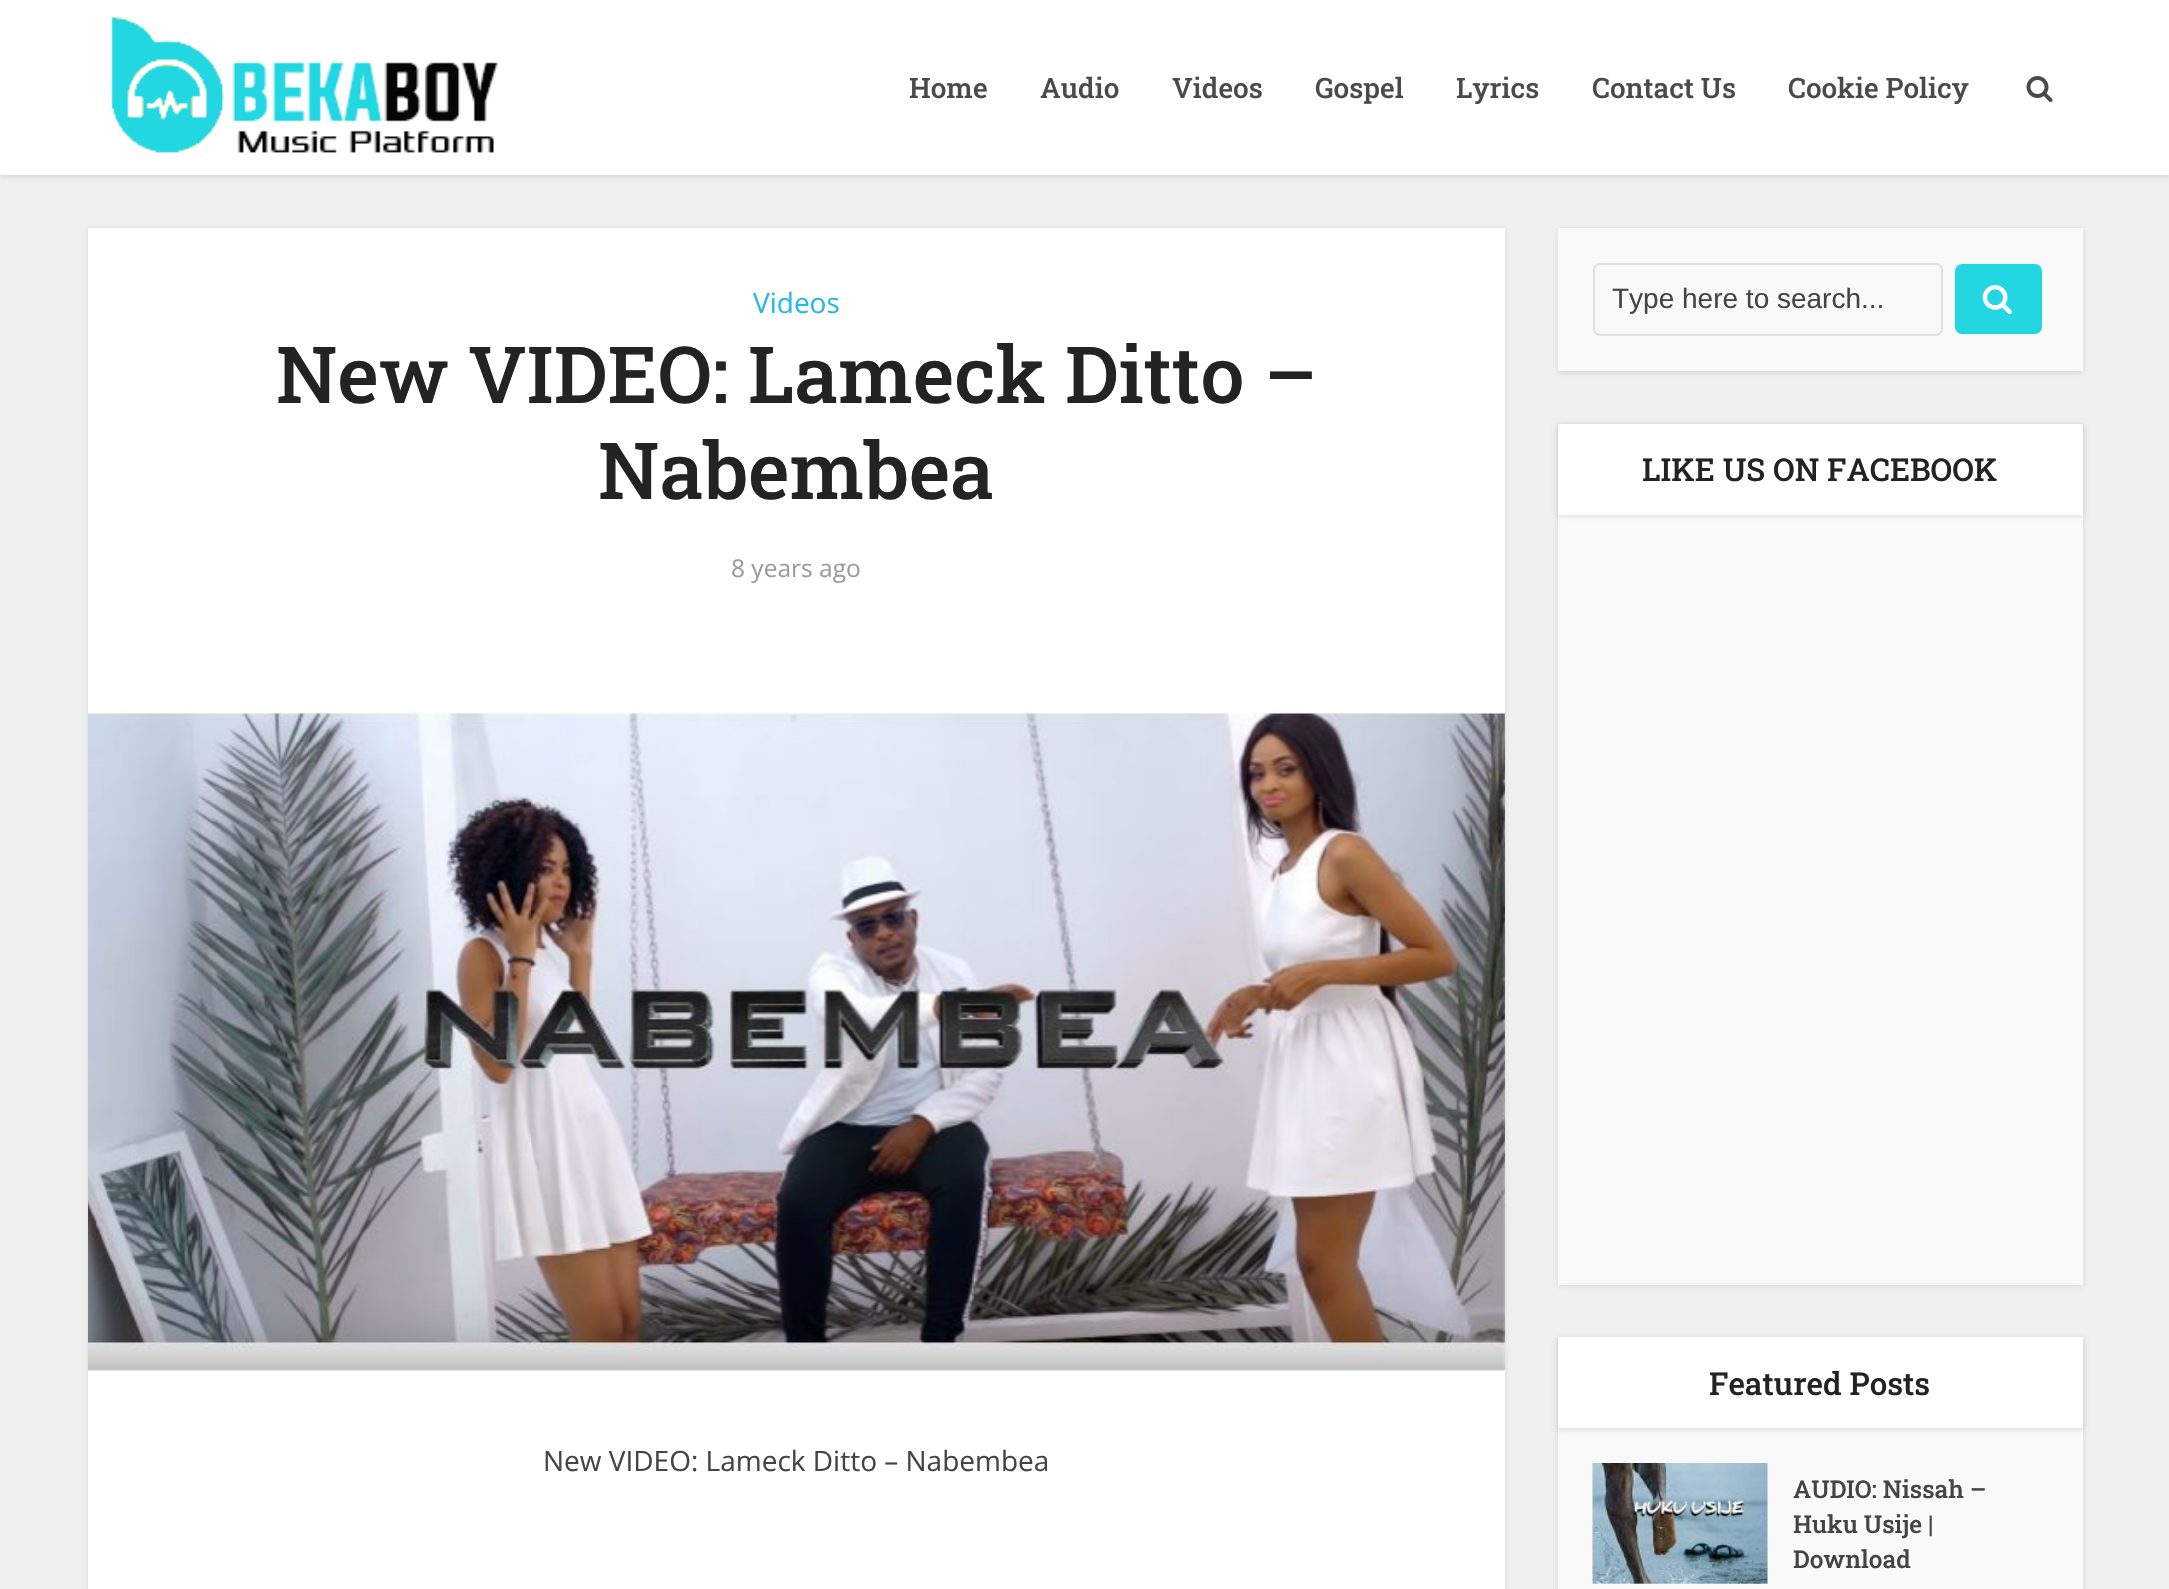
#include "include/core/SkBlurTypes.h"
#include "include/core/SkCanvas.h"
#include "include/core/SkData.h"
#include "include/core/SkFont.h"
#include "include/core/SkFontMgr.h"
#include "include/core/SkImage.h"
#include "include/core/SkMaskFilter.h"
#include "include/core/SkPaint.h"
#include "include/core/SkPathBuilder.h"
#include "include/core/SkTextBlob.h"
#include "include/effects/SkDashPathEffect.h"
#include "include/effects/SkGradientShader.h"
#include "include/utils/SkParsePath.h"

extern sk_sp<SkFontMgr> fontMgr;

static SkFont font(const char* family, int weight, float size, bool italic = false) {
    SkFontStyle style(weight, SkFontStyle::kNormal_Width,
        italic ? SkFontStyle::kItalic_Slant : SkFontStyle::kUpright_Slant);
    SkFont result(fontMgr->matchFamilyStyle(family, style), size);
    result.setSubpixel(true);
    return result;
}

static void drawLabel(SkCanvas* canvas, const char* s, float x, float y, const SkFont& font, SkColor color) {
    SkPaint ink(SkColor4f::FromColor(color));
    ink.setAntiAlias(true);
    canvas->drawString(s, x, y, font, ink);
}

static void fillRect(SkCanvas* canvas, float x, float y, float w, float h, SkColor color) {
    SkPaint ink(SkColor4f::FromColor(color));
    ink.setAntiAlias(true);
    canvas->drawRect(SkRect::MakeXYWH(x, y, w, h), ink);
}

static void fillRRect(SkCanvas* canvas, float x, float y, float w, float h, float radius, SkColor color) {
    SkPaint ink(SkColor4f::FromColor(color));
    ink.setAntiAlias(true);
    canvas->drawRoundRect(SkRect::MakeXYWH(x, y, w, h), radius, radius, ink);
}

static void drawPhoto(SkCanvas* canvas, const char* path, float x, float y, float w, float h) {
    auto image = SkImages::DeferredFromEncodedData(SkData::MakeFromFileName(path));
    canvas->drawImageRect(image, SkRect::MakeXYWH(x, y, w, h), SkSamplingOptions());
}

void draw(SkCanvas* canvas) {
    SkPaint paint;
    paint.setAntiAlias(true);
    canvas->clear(0xFFF0F0F0);
    paint.setColor(0x1A000000);
    paint.setMaskFilter(SkMaskFilter::MakeBlur(kNormal_SkBlurStyle, 2.5f));
    canvas->drawRect(SkRect::MakeXYWH(0, 2, 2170, 175), paint);
    paint.setMaskFilter(nullptr);
    fillRect(canvas, 0, 0, 2169, 175, 0xFFFFFFFF);
    drawPhoto(canvas, "assets/img1.png", 111, 17, 388, 137);
    SkFont font1 = font("Roboto Slab", 500, 28);
    drawLabel(canvas, "Home", 909, 98, font1, 0xFF4A4A4A);
    drawLabel(canvas, "Audio", 1040, 98, font1, 0xFF4A4A4A);
    drawLabel(canvas, "Videos", 1172, 98, font1, 0xFF4A4A4A);
    drawLabel(canvas, "Gospel", 1315, 98, font1, 0xFF4A4A4A);
    drawLabel(canvas, "Lyrics", 1456, 98, font1, 0xFF4A4A4A);
    drawLabel(canvas, "Contact Us", 1592, 98, font1, 0xFF4A4A4A);
    drawLabel(canvas, "Cookie Policy", 1788, 98, font1, 0xFF4A4A4A);
    drawPhoto(canvas, "assets/img2.png", 2026, 76, 27, 26);
    paint.setMaskFilter(SkMaskFilter::MakeBlur(kNormal_SkBlurStyle, 2.5f));
    canvas->drawRect(SkRect::MakeXYWH(88, 229, 1417, 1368), paint);
    paint.setMaskFilter(nullptr);
    fillRect(canvas, 88, 228, 1417, 1361, 0xFFFFFFFF);
    SkFont font2 = font("Open Sans", 400, 28);
    drawLabel(canvas, "Videos", 753, 313, font2, 0xFF27B9E5);
    SkFont font3 = font("Roboto Slab", 500, 78.75f);
    drawLabel(canvas, "New VIDEO: Lameck Ditto –", 276, 403, font3, 0xFF232323);
    drawLabel(canvas, "Nabembea", 598, 499, font3, 0xFF232323);
    SkFont font4 = font("Open Sans", 400, 24.5f);
    drawLabel(canvas, "8 years ago", 731, 577, font4, 0xFF9B9B9B);
    drawPhoto(canvas, "assets/img3.png", 88, 711, 1417, 660);
    drawLabel(canvas, "New VIDEO: Lameck Ditto – Nabembea", 543, 1471, font2, 0xFF444444);
    paint.setMaskFilter(SkMaskFilter::MakeBlur(kNormal_SkBlurStyle, 2.5f));
    canvas->drawRect(SkRect::MakeXYWH(1558, 229, 525, 144), paint);
    paint.setMaskFilter(nullptr);
    fillRect(canvas, 1558, 228, 525, 143, 0xFFF9F9F9);
    paint.setStroke(true);
    paint.setStrokeWidth(2);
    paint.setColor(0xFFE0E0E0);
    canvas->drawRoundRect(SkRect::MakeXYWH(1594, 264, 348, 71), 6, 6, paint);
    SkFont font5 = font("Liberation Sans", 400, 28);
    drawLabel(canvas, "Type here to search...", 1612, 308, font5, 0xFF444444);
    fillRRect(canvas, 1955, 264, 87, 70, 7, 0xFF22D6E2);
    drawPhoto(canvas, "assets/img4.png", 1982, 285, 30, 30);
    paint.setStroke(false);
    paint.setColor(0x1A000000);
    paint.setMaskFilter(SkMaskFilter::MakeBlur(kNormal_SkBlurStyle, 2.5f));
    canvas->drawRect(SkRect::MakeXYWH(1558, 425, 525, 861), paint);
    paint.setMaskFilter(nullptr);
    fillRect(canvas, 1558, 515, 525, 770, 0xFFF9F9F9);
    paint.setMaskFilter(SkMaskFilter::MakeBlur(kNormal_SkBlurStyle, 2.5f));
    canvas->drawRect(SkRect::MakeXYWH(1558, 425, 525, 91), paint);
    paint.setMaskFilter(nullptr);
    fillRect(canvas, 1558, 424, 525, 91, 0xFFFFFFFF);
    SkFont font6 = font("Roboto Slab", 500, 31.5f);
    drawLabel(canvas, "LIKE US ON FACEBOOK", 1642, 481, font6, 0xFF232323);
    paint.setMaskFilter(SkMaskFilter::MakeBlur(kNormal_SkBlurStyle, 2.5f));
    canvas->drawRect(SkRect::MakeXYWH(1558, 1339, 525, 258), paint);
    paint.setMaskFilter(nullptr);
    fillRect(canvas, 1558, 1428, 525, 161, 0xFFF9F9F9);
    paint.setMaskFilter(SkMaskFilter::MakeBlur(kNormal_SkBlurStyle, 2.5f));
    canvas->drawRect(SkRect::MakeXYWH(1558, 1339, 525, 91), paint);
    paint.setMaskFilter(nullptr);
    fillRect(canvas, 1558, 1337, 525, 91, 0xFFFFFFFF);
    drawLabel(canvas, "Featured Posts", 1709, 1395, font6, 0xFF232323);
    drawPhoto(canvas, "assets/img5.png", 1592, 1463, 176, 121);
    SkFont font7 = font("Roboto Slab", 500, 24.5f);
    drawLabel(canvas, "AUDIO: Nissah –", 1793, 1498, font7, 0xFF444444);
    drawLabel(canvas, "Huku Usije |", 1793, 1533, font7, 0xFF444444);
    drawLabel(canvas, "Download", 1793, 1568, font7, 0xFF444444);
}
